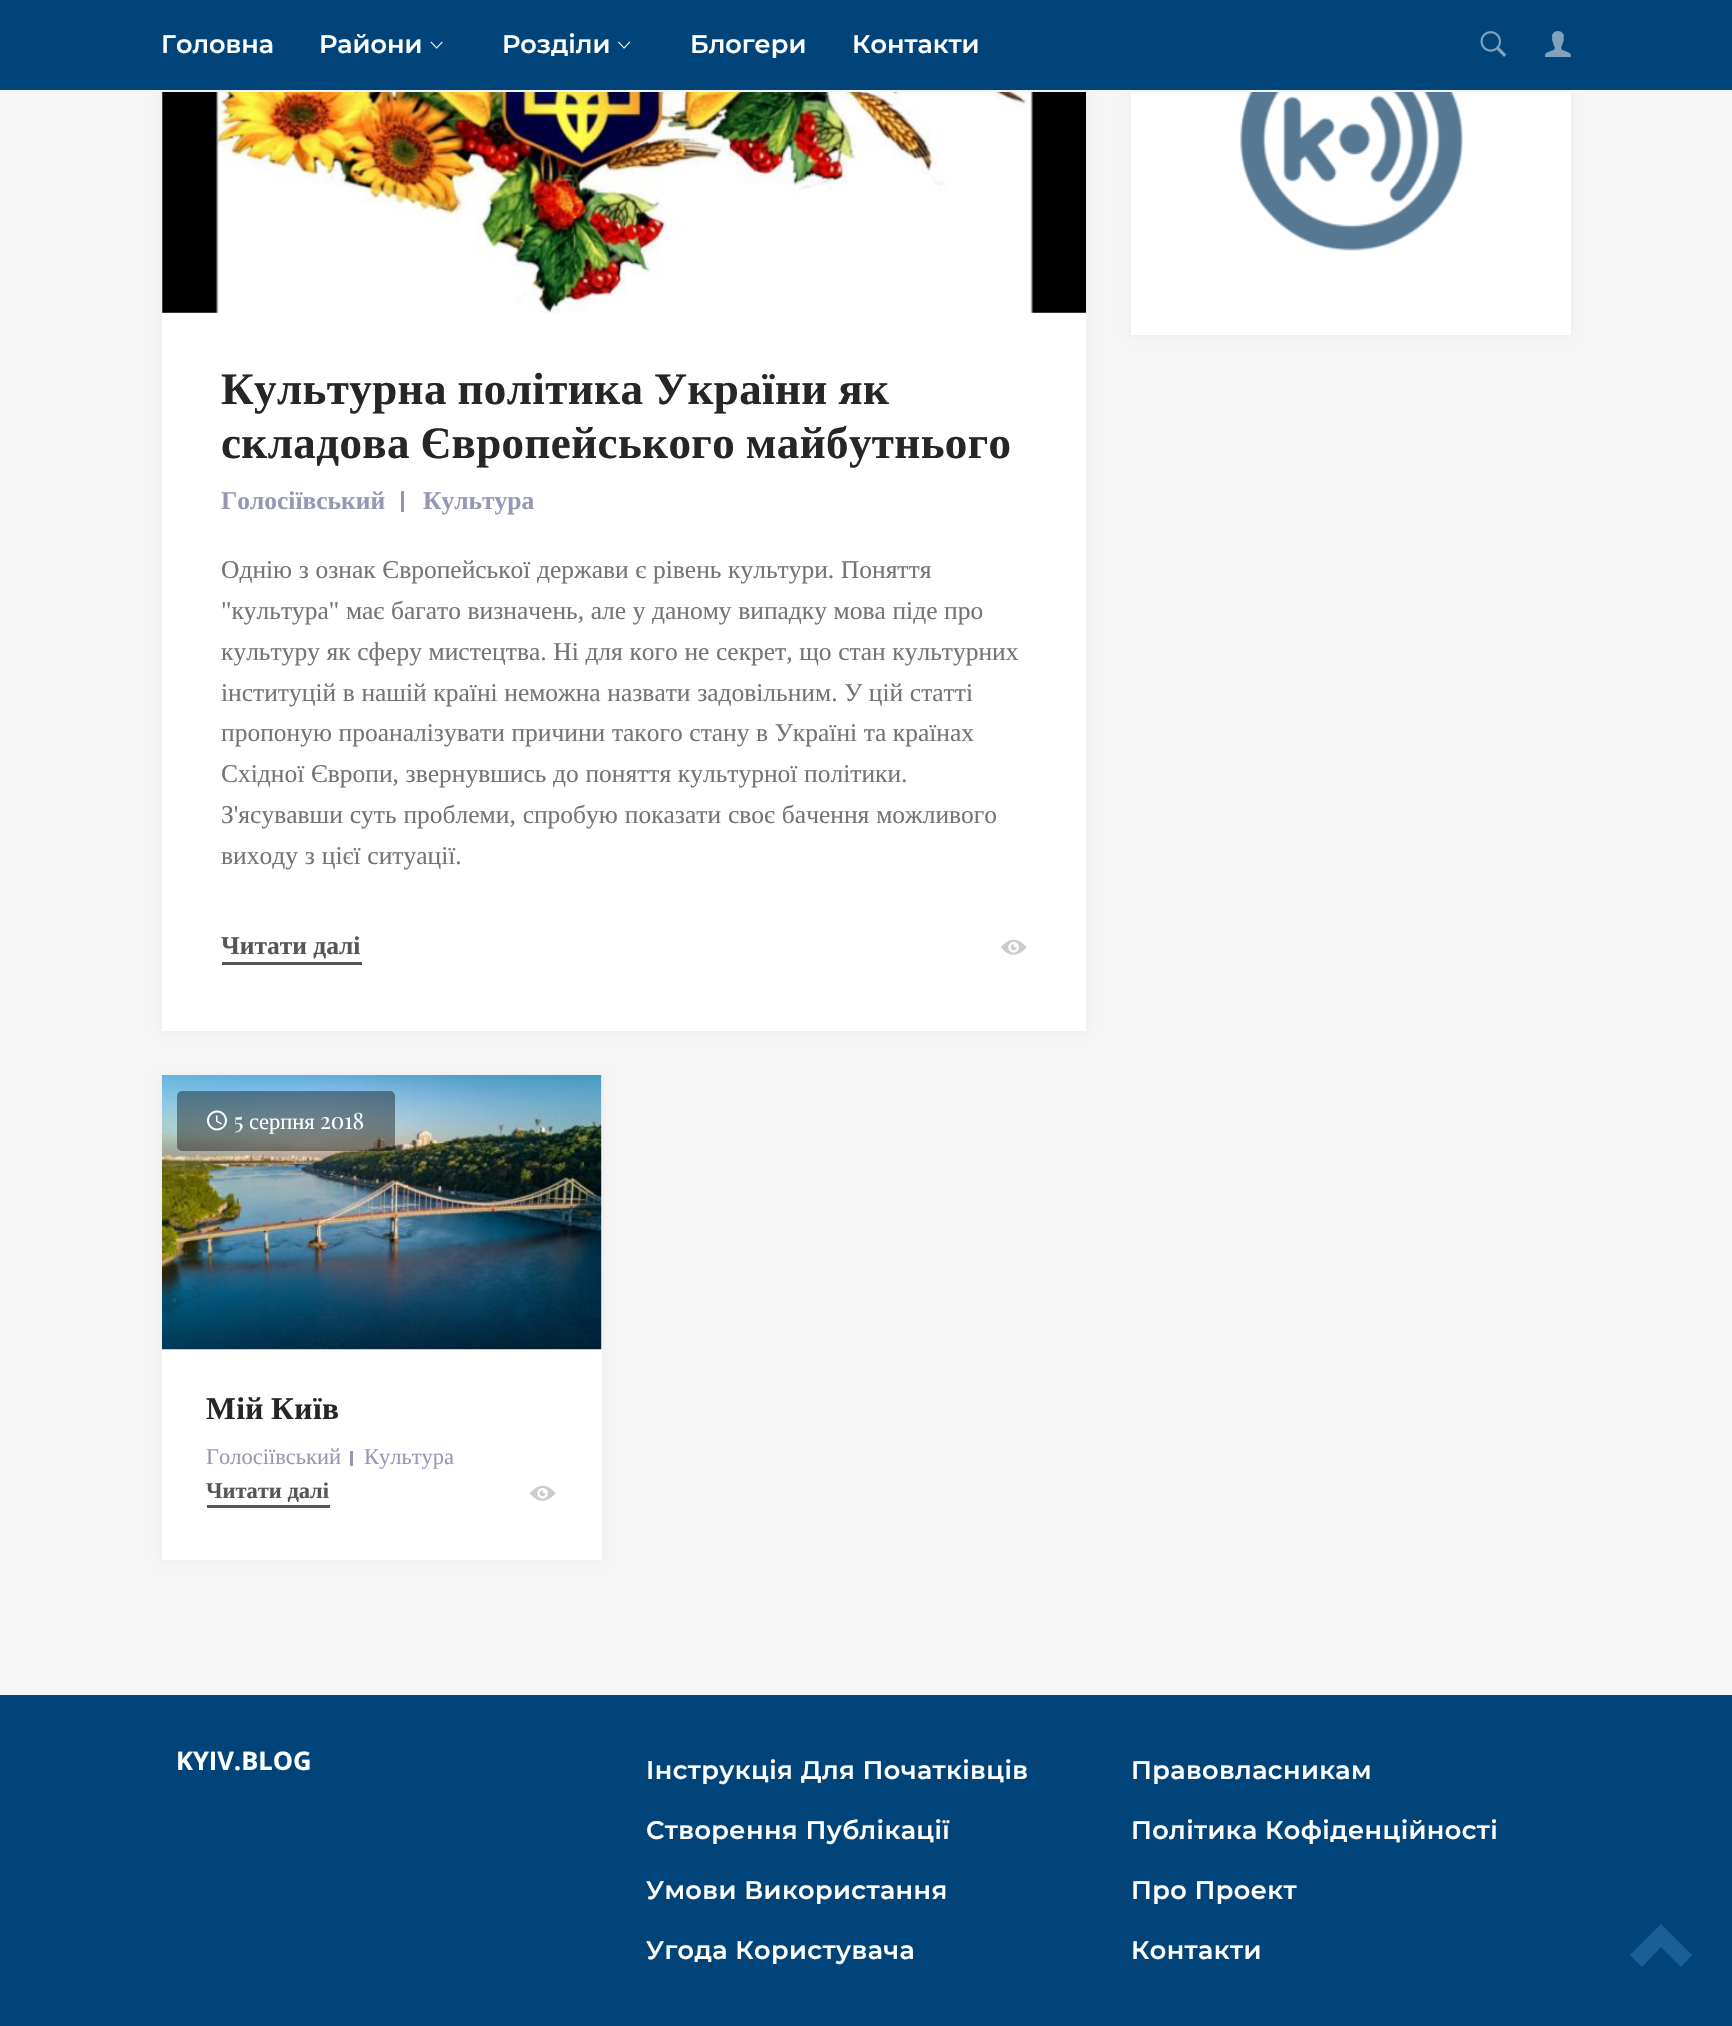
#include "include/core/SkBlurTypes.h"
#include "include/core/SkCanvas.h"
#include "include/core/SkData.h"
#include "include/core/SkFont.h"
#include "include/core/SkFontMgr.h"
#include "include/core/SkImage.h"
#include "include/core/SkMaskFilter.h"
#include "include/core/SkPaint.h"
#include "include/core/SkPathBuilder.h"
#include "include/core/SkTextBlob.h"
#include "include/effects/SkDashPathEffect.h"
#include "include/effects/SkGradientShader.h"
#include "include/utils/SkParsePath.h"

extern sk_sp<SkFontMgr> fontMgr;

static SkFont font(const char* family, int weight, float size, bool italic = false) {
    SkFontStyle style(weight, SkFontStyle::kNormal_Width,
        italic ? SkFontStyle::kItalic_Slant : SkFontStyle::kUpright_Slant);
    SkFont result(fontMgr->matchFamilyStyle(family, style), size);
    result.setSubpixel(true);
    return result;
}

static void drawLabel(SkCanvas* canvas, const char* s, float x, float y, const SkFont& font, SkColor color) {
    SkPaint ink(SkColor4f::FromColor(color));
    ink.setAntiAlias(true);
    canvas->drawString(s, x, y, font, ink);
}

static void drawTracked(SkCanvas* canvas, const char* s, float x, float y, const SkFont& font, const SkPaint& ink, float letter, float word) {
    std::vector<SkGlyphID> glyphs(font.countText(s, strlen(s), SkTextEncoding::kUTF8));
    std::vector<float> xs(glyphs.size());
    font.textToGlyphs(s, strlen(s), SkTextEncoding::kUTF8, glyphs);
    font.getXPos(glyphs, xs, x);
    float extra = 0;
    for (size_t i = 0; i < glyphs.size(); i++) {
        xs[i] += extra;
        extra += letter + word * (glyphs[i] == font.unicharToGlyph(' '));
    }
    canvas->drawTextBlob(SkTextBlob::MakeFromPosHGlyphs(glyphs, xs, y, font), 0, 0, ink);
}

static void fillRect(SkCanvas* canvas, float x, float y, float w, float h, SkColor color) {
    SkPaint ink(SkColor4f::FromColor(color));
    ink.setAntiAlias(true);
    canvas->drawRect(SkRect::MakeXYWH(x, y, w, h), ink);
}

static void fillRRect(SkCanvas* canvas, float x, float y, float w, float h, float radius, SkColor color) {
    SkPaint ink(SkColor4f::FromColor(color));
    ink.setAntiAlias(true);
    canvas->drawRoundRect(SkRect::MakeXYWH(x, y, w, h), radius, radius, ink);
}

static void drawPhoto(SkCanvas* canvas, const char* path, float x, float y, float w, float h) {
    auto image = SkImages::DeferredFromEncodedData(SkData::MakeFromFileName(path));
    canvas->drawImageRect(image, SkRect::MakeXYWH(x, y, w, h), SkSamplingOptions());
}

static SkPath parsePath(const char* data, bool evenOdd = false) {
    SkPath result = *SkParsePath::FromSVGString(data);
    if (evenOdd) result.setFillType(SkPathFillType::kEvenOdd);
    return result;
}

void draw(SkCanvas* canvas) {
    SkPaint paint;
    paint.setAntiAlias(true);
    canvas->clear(0xFFF6F6F6);
    paint.setColor(0x0D000000);
    paint.setMaskFilter(SkMaskFilter::MakeBlur(kNormal_SkBlurStyle, 4));
    canvas->drawRect(SkRect::MakeXYWH(1131, -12, 440, 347), paint);
    paint.setMaskFilter(nullptr);
    paint.setMaskFilter(SkMaskFilter::MakeBlur(kNormal_SkBlurStyle, 4));
    canvas->drawRect(SkRect::MakeXYWH(162, -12, 924, 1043), paint);
    paint.setMaskFilter(nullptr);
    fillRect(canvas, 0, 0, 1732, 90, 0xFF004479);
    fillRect(canvas, 0, 90, 1732, 2, 0xFFF4F4FF);
    SkFont font1 = font("Montserrat", 600, 25.5f);
    drawLabel(canvas, "Головна", 161, 53, font1, 0xFFFFFFFF);
    drawLabel(canvas, "Райони", 319, 53, font1, 0xFFFFFFFF);
    drawPhoto(canvas, "assets/img1.png", 430, 41, 13, 8);
    drawLabel(canvas, "Розділи", 502, 53, font1, 0xFFFFFFFF);
    drawPhoto(canvas, "assets/img2.png", 618, 41, 13, 8);
    drawLabel(canvas, "Блогери", 690, 53, font1, 0xFFFFFFFF);
    drawLabel(canvas, "Контакти", 852, 53, font1, 0xFFFFFFFF);
    drawPhoto(canvas, "assets/img3.png", 1480, 31, 27, 26);
    drawPhoto(canvas, "assets/img4.png", 1545, 31, 26, 26);
    fillRect(canvas, 1131, 92, 440, 243, 0xFFFFFFFF);
    drawPhoto(canvas, "assets/img5.png", 1240, 92, 223, 159);
    fillRect(canvas, 162, 92, 924, 939, 0xFFFFFFFF);
    drawPhoto(canvas, "assets/img6.png", 162, 92, 924, 221);
    SkFont font2 = font("Liberation Serif", 700, 45);
    paint.setColor(0xFF262626);
    drawTracked(canvas, "Культурна політика України як", 221, 404, font2, paint, 0.4f, -1);
    drawTracked(canvas, "складова Європейського майбутнього", 221, 458, font2, paint, 0.4f, -1);
    SkFont font3 = font("Liberation Serif", 700, 25.5f);
    drawLabel(canvas, "Голосіївський", 221, 509, font3, 0xFF9697B5);
    fillRect(canvas, 401, 491, 3, 21, 0xFF9697B5);
    drawLabel(canvas, "Культура", 423, 509, font3, 0xFF9697B5);
    SkFont font4 = font("Liberation Serif", 400, 25.5f);
    paint.setColor(0xFF747474);
    drawTracked(canvas, "Однію з ознак Європейської держави є рівень культури. Поняття", 221, 578, font4, paint, 0, 0.25f);
    drawTracked(canvas, "\"культура\" має багато визначень, але у даному випадку мова піде про", 221, 619, font4, paint, 0, 0.25f);
    drawTracked(canvas, "культуру як сферу мистецтва. Ні для кого не секрет, що стан культурних", 221, 660, font4, paint, 0, 0.25f);
    drawTracked(canvas, "інституцій в нашій країні неможна назвати задовільним. У цій статті", 221, 701, font4, paint, 0, 0.25f);
    drawTracked(canvas, "пропоную проаналізувати причини такого стану в Україні та країнах", 221, 741, font4, paint, 0, 0.25f);
    drawTracked(canvas, "Східної Європи, звернувшись до поняття культурної політики.", 221, 782, font4, paint, 0, 0.25f);
    drawTracked(canvas, "З'ясувавши суть проблеми, спробую показати своє бачення можливого", 221, 823, font4, paint, 0, 0.5f);
    drawTracked(canvas, "виходу з цієї ситуації.", 221, 864, font4, paint, 0, 0.5f);
    drawLabel(canvas, "Читати далі", 221, 954, font3, 0xFF565656);
    fillRect(canvas, 222, 962, 140, 3, 0xFF565656);
    drawPhoto(canvas, "assets/img7.png", 1000, 939, 27, 16);
    paint.setColor(0x0D000000);
    paint.setMaskFilter(SkMaskFilter::MakeBlur(kNormal_SkBlurStyle, 4));
    canvas->drawRect(SkRect::MakeXYWH(162, 1076, 440, 484), paint);
    paint.setMaskFilter(nullptr);
    fillRect(canvas, 162, 1076, 440, 484, 0xFFFFFFFF);
    drawPhoto(canvas, "assets/img8.png", 162, 1075, 440, 275);
    fillRRect(canvas, 177, 1091, 218, 60, 5, 0x66000000);
    drawPhoto(canvas, "assets/img9.png", 207, 1110, 20, 21);
    SkFont font5 = font("Playfair Display", 400, 22.5f);
    drawLabel(canvas, "5", 234, 1129, font5, 0xFFFFFFFF);
    SkFont font6 = font("Liberation Serif", 400, 22.5f);
    drawLabel(canvas, "серпня", 249, 1129, font6, 0xFFFFFFFF);
    drawLabel(canvas, "2018", 320, 1129, font5, 0xFFFFFFFF);
    SkFont font7 = font("Liberation Serif", 700, 31.5f);
    paint.setColor(0xFF262626);
    drawTracked(canvas, "Мій Київ", 206, 1419, font7, paint, 0.4f, -1);
    drawLabel(canvas, "Голосіївський", 206, 1464, font6, 0xFF9697B5);
    fillRect(canvas, 350, 1451, 3, 15, 0xFF9697B5);
    drawLabel(canvas, "Культура", 364, 1464, font6, 0xFF9697B5);
    SkFont font8 = font("Liberation Serif", 700, 22.5f);
    drawLabel(canvas, "Читати далі", 206, 1498, font8, 0xFF565656);
    fillRect(canvas, 207, 1505, 123, 3, 0xFF565656);
    drawPhoto(canvas, "assets/img7.png", 529, 1485, 27, 16);
    fillRect(canvas, 0, 1695, 1732, 331, 0xFF004479);
    SkFont font9 = font("Open Sans", 700, 25.5f);
    drawLabel(canvas, "KYIV.BLOG", 176, 1770, font9, 0xFFFFFFFF);
    paint.setColor(0xFFFFFFFF);
    drawTracked(canvas, "Інструкція Для Початківців", 646, 1779, font1, paint, 0.4f, 0);
    drawTracked(canvas, "Створення Публікації", 646, 1839, font1, paint, 0.4f, 0);
    drawTracked(canvas, "Умови Використання", 646, 1899, font1, paint, 0.4f, 0);
    drawTracked(canvas, "Угода Користувача", 646, 1959, font1, paint, 0.4f, 0);
    drawTracked(canvas, "Правовласникам", 1131, 1779, font1, paint, 0.4f, 0);
    drawTracked(canvas, "Політика Кофіденційності", 1131, 1839, font1, paint, 0.4f, 0);
    drawTracked(canvas, "Про Проект", 1131, 1899, font1, paint, 0.4f, 0);
    drawTracked(canvas, "Контакти", 1131, 1959, font1, paint, 0.4f, 0);
    paint.setColor(0xFF1A5F98);
    canvas->drawPath(parsePath("M1692 1955L1681 1967L1661 1947L1642 1967L1630 1955L1661 1924Z"), paint);
}
